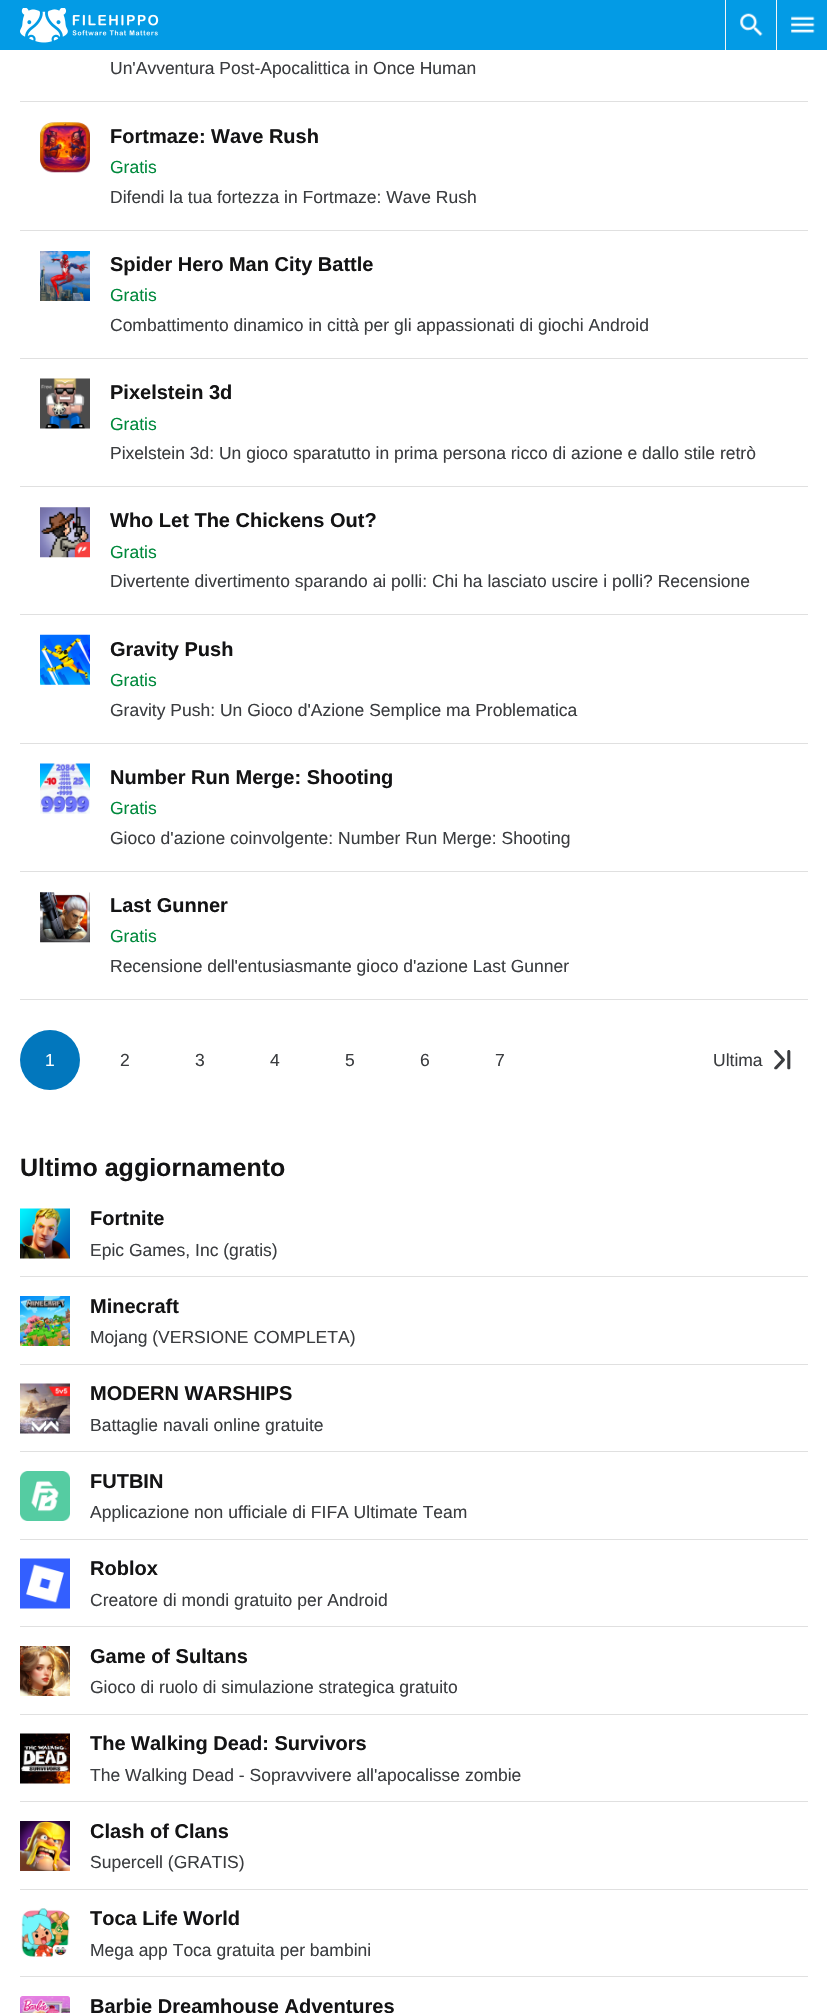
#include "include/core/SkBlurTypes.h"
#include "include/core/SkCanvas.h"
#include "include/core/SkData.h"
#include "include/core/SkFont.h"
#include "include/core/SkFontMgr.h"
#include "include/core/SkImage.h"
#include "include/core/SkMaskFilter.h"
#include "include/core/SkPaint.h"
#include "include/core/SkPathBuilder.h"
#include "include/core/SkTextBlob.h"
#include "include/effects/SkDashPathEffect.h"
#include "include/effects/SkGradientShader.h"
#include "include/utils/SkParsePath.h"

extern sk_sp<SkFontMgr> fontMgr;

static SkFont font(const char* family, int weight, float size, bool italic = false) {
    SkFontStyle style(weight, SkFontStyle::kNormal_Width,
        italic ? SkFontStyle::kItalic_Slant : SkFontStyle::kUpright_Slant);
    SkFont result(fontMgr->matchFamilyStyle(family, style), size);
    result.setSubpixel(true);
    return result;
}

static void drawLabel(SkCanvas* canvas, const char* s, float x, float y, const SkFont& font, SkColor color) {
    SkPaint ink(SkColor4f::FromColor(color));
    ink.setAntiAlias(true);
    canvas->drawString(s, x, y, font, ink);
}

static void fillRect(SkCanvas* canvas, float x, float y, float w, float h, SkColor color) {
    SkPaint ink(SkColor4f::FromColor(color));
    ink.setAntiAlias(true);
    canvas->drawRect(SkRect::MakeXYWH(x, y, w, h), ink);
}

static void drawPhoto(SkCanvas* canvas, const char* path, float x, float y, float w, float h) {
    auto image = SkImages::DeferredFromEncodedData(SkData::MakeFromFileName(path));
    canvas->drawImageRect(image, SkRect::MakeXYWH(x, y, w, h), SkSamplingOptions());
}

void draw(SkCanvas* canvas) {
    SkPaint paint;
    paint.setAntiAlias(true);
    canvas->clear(0xFFFFFFFF);
    fillRect(canvas, 0, 0, 827, 50, 0xFF039BE5);
    drawPhoto(canvas, "assets/img1.png", 20, 8, 139, 35);
    fillRect(canvas, 725, 0, 1, 50, 0xFFF5F5F5);
    fillRect(canvas, 776, 0, 1, 50, 0xFFF5F5F5);
    drawPhoto(canvas, "assets/img2.png", 740, 13, 23, 23);
    drawPhoto(canvas, "assets/img3.png", 791, 16, 24, 17);
    fillRect(canvas, 20, 101, 788, 1, 0xFFE0E0E0);
    SkFont font1 = font("Liberation Sans", 400, 17.5f);
    drawLabel(canvas, "Un'Avventura Post-Apocalittica in Once Human", 110, 74, font1, 0xFF3B3D40);
    fillRect(canvas, 20, 230, 788, 1, 0xFFE0E0E0);
    drawPhoto(canvas, "assets/img4.png", 40, 122, 50, 51);
    SkFont font2 = font("Liberation Sans", 700, 20);
    drawLabel(canvas, "Fortmaze: Wave Rush", 110, 143, font2, 0xFF141415);
    drawLabel(canvas, "Gratis", 110, 173, font1, 0xFF00893C);
    drawLabel(canvas, "Difendi la tua fortezza in Fortmaze: Wave Rush", 110, 203, font1, 0xFF3B3D40);
    fillRect(canvas, 20, 358, 788, 1, 0xFFE0E0E0);
    drawPhoto(canvas, "assets/img5.png", 40, 251, 50, 50);
    drawLabel(canvas, "Spider Hero Man City Battle", 110, 271, font2, 0xFF141415);
    drawLabel(canvas, "Gratis", 110, 301, font1, 0xFF00893C);
    drawLabel(canvas, "Combattimento dinamico in città per gli appassionati di giochi Android", 110, 331, font1, 0xFF3B3D40);
    fillRect(canvas, 20, 486, 788, 1, 0xFFE0E0E0);
    drawPhoto(canvas, "assets/img6.png", 40, 378, 50, 51);
    drawLabel(canvas, "Pixelstein 3d", 110, 399, font2, 0xFF141415);
    drawLabel(canvas, "Gratis", 110, 430, font1, 0xFF00893C);
    drawLabel(canvas, "Pixelstein 3d: Un gioco sparatutto in prima persona ricco di azione e dallo stile retrò", 110, 459, font1, 0xFF3B3D40);
    fillRect(canvas, 20, 614, 788, 1, 0xFFE0E0E0);
    drawPhoto(canvas, "assets/img7.png", 40, 507, 50, 51);
    drawLabel(canvas, "Who Let The Chickens Out?", 110, 527, font2, 0xFF141415);
    drawLabel(canvas, "Gratis", 110, 558, font1, 0xFF00893C);
    drawLabel(canvas, "Divertente divertimento sparando ai polli: Chi ha lasciato uscire i polli? Recensione", 110, 587, font1, 0xFF3B3D40);
    fillRect(canvas, 20, 743, 788, 1, 0xFFE0E0E0);
    drawPhoto(canvas, "assets/img8.png", 40, 634, 50, 51);
    drawLabel(canvas, "Gravity Push", 110, 656, font2, 0xFF141415);
    drawLabel(canvas, "Gratis", 110, 686, font1, 0xFF00893C);
    drawLabel(canvas, "Gravity Push: Un Gioco d'Azione Semplice ma Problematica", 110, 716, font1, 0xFF3B3D40);
    fillRect(canvas, 20, 871, 788, 1, 0xFFE0E0E0);
    drawPhoto(canvas, "assets/img9.png", 40, 763, 50, 51);
    drawLabel(canvas, "Number Run Merge: Shooting", 110, 784, font2, 0xFF141415);
    drawLabel(canvas, "Gratis", 110, 814, font1, 0xFF00893C);
    drawLabel(canvas, "Gioco d'azione coinvolgente: Number Run Merge: Shooting", 110, 844, font1, 0xFF3B3D40);
    fillRect(canvas, 20, 999, 788, 1, 0xFFE0E0E0);
    drawPhoto(canvas, "assets/img10.png", 40, 892, 50, 51);
    drawLabel(canvas, "Last Gunner", 110, 912, font2, 0xFF141415);
    drawLabel(canvas, "Gratis", 110, 942, font1, 0xFF00893C);
    drawLabel(canvas, "Recensione dell'entusiasmante gioco d'azione Last Gunner", 110, 972, font1, 0xFF3B3D40);
    paint.setColor(0xFF0277BD);
    canvas->drawCircle(50, 1060, 30, paint);
    drawLabel(canvas, "1", 45, 1066, font1, 0xFFFFFFFF);
    drawLabel(canvas, "2", 120, 1066, font1, 0xFF3B3D40);
    drawLabel(canvas, "3", 195, 1066, font1, 0xFF3B3D40);
    drawLabel(canvas, "4", 270, 1066, font1, 0xFF3B3D40);
    drawLabel(canvas, "5", 345, 1066, font1, 0xFF3B3D40);
    drawLabel(canvas, "6", 420, 1066, font1, 0xFF3B3D40);
    drawLabel(canvas, "7", 495, 1066, font1, 0xFF3B3D40);
    drawLabel(canvas, "Ultima", 713, 1066, font1, 0xFF3B3D40);
    drawPhoto(canvas, "assets/img11.png", 774, 1050, 17, 20);
    SkFont font3 = font("Liberation Sans", 700, 25);
    drawLabel(canvas, "Ultimo aggiornamento", 20, 1176, font3, 0xFF141415);
    drawPhoto(canvas, "assets/img12.png", 20, 1208, 50, 51);
    drawLabel(canvas, "Fortnite", 90, 1225, font2, 0xFF141415);
    drawLabel(canvas, "Epic Games, Inc (gratis)", 90, 1256, font1, 0xFF3B3D40);
    fillRect(canvas, 20, 1276, 788, 1, 0xFFE0E0E0);
    drawPhoto(canvas, "assets/img13.png", 20, 1296, 50, 50);
    drawLabel(canvas, "Minecraft", 90, 1313, font2, 0xFF141415);
    drawLabel(canvas, "Mojang (VERSIONE COMPLETA)", 90, 1343, font1, 0xFF3B3D40);
    fillRect(canvas, 20, 1364, 788, 1, 0xFFE0E0E0);
    drawPhoto(canvas, "assets/img14.png", 20, 1383, 50, 51);
    drawLabel(canvas, "MODERN WARSHIPS", 90, 1400, font2, 0xFF141415);
    drawLabel(canvas, "Battaglie navali online gratuite", 90, 1431, font1, 0xFF3B3D40);
    fillRect(canvas, 20, 1451, 788, 1, 0xFFE0E0E0);
    drawPhoto(canvas, "assets/img15.png", 20, 1471, 50, 50);
    drawLabel(canvas, "FUTBIN", 90, 1488, font2, 0xFF141415);
    drawLabel(canvas, "Applicazione non ufficiale di FIFA Ultimate Team", 90, 1518, font1, 0xFF3B3D40);
    fillRect(canvas, 20, 1539, 788, 1, 0xFFE0E0E0);
    drawPhoto(canvas, "assets/img16.png", 20, 1558, 50, 51);
    drawLabel(canvas, "Roblox", 90, 1575, font2, 0xFF141415);
    drawLabel(canvas, "Creatore di mondi gratuito per Android", 90, 1606, font1, 0xFF3B3D40);
    fillRect(canvas, 20, 1626, 788, 1, 0xFFE0E0E0);
    drawPhoto(canvas, "assets/img17.png", 20, 1646, 50, 50);
    drawLabel(canvas, "Game of Sultans", 90, 1663, font2, 0xFF141415);
    drawLabel(canvas, "Gioco di ruolo di simulazione strategica gratuito", 90, 1693, font1, 0xFF3B3D40);
    fillRect(canvas, 20, 1714, 788, 1, 0xFFE0E0E0);
    drawPhoto(canvas, "assets/img18.png", 20, 1733, 50, 51);
    drawLabel(canvas, "The Walking Dead: Survivors", 90, 1750, font2, 0xFF141415);
    drawLabel(canvas, "The Walking Dead - Sopravvivere all'apocalisse zombie", 90, 1781, font1, 0xFF3B3D40);
    fillRect(canvas, 20, 1801, 788, 1, 0xFFE0E0E0);
    drawPhoto(canvas, "assets/img19.png", 20, 1821, 50, 50);
    drawLabel(canvas, "Clash of Clans", 90, 1838, font2, 0xFF141415);
    drawLabel(canvas, "Supercell (GRATIS)", 90, 1868, font1, 0xFF3B3D40);
    fillRect(canvas, 20, 1889, 788, 1, 0xFFE0E0E0);
    drawPhoto(canvas, "assets/img20.png", 21, 1908, 49, 49);
    drawLabel(canvas, "Toca Life World", 90, 1925, font2, 0xFF141415);
    drawLabel(canvas, "Mega app Toca gratuita per bambini", 90, 1956, font1, 0xFF3B3D40);
    fillRect(canvas, 20, 1976, 788, 1, 0xFFE0E0E0);
    drawPhoto(canvas, "assets/img21.png", 20, 1996, 50, 17);
    drawLabel(canvas, "Barbie Dreamhouse Adventures", 90, 2013, font2, 0xFF141415);
}
